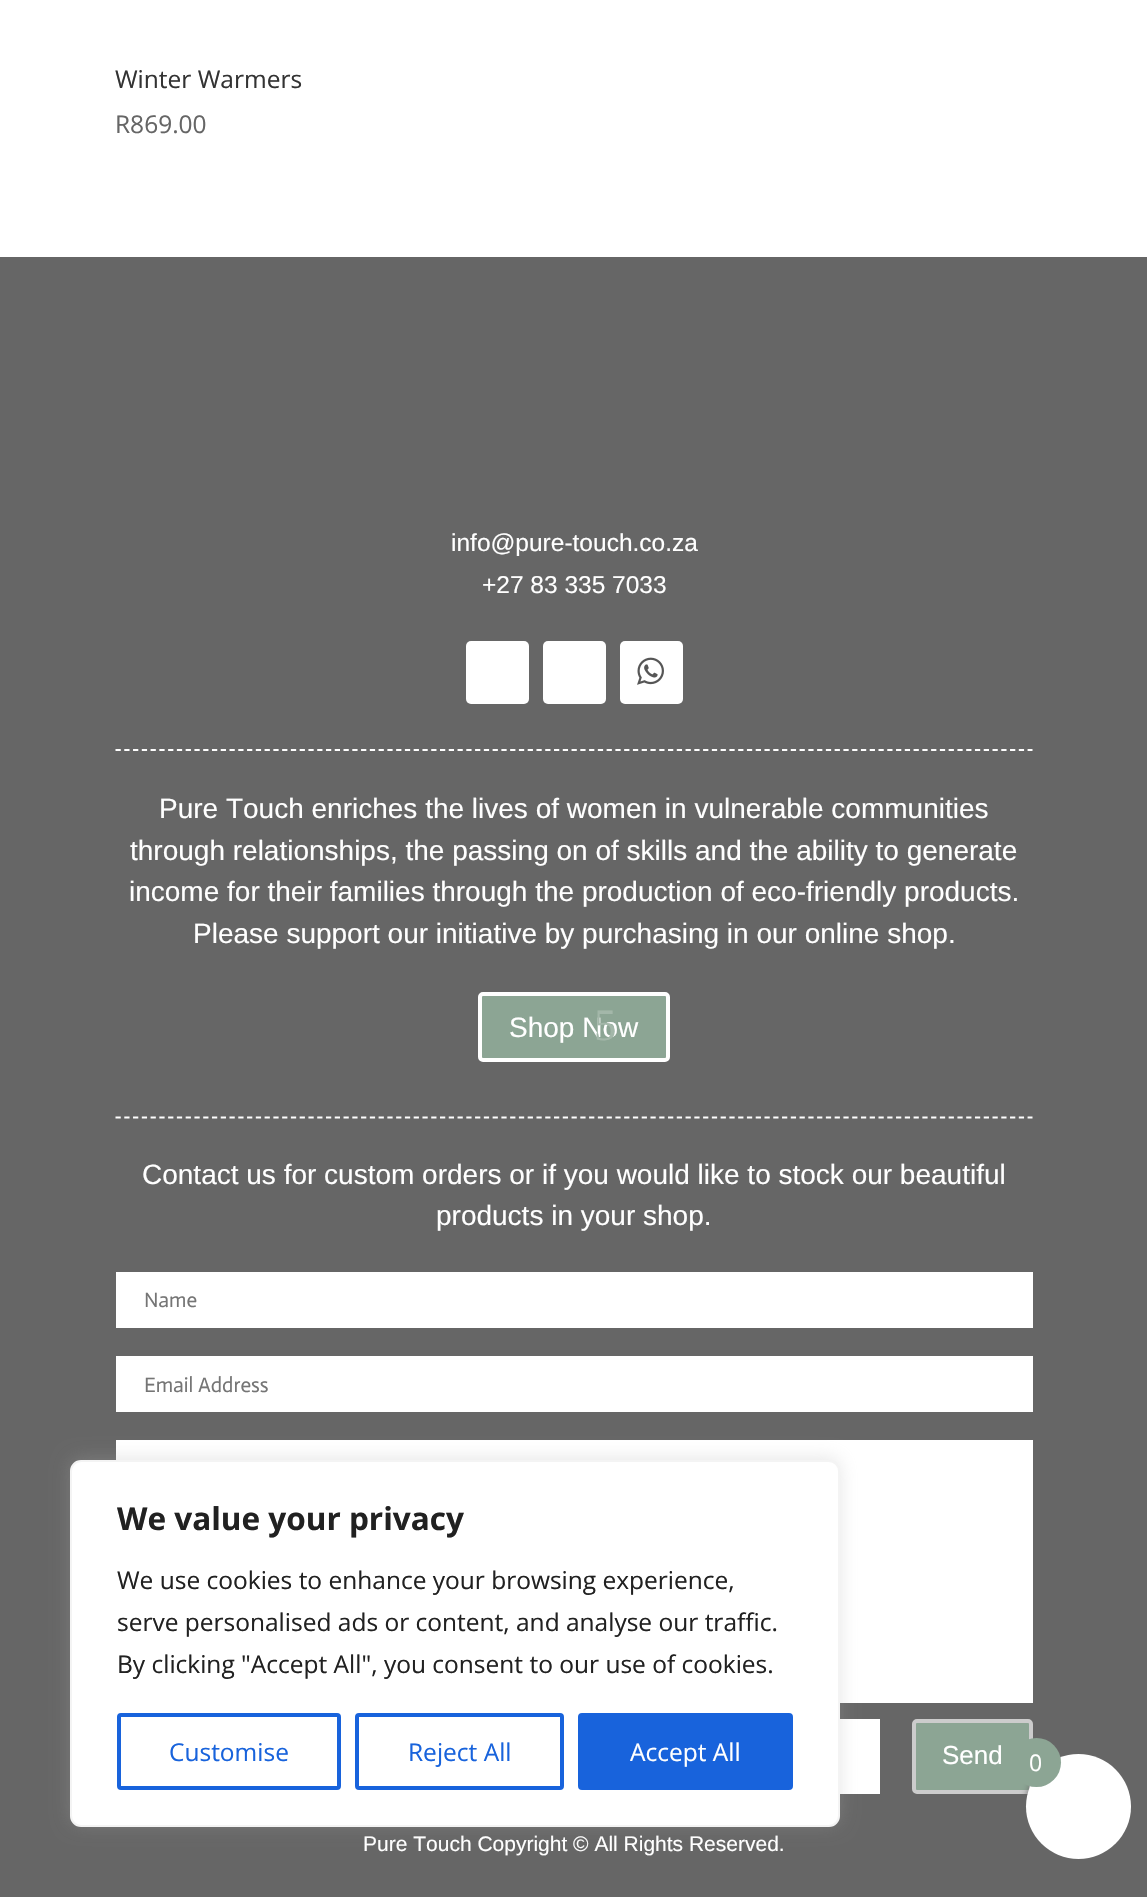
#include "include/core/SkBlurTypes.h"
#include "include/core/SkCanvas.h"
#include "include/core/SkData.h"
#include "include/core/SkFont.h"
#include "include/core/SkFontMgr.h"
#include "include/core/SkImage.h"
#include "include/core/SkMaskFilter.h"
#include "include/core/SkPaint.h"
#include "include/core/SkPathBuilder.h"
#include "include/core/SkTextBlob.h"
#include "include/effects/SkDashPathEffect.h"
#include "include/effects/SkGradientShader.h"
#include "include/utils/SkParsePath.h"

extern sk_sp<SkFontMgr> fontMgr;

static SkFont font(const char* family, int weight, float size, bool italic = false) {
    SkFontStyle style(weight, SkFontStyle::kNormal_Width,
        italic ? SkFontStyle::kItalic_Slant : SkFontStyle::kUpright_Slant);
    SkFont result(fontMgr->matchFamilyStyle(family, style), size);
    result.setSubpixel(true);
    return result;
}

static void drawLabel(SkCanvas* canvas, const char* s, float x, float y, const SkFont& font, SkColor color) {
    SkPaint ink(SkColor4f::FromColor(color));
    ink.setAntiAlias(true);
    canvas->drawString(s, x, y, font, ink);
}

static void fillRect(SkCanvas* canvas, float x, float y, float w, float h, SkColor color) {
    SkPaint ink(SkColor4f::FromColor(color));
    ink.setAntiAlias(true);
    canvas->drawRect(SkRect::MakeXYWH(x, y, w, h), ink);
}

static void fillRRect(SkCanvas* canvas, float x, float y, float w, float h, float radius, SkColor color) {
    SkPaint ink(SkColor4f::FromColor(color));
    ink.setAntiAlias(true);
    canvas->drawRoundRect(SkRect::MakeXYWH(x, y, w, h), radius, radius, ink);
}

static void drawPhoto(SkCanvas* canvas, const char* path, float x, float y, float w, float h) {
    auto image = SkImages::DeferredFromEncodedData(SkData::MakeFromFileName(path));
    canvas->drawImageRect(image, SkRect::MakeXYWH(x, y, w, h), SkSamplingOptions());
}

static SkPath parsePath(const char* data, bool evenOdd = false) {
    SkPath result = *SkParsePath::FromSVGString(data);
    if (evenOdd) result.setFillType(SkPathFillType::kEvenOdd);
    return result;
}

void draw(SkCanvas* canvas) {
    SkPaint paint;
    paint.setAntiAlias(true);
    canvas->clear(0xFFFFFFFF);
    SkFont font1 = font("Open Sans", 400, 24.5f);
    drawLabel(canvas, "Winter Warmers", 115, 88, font1, 0xFF333333);
    drawLabel(canvas, "R869.00", 115, 133, font1, 0xFF666666);
    fillRect(canvas, 0, 257, 1147, 1640, 0xFF666666);
    SkFont font2 = font("Liberation Sans", 400, 24.5f);
    drawLabel(canvas, "info@pure-touch.co.za", 451, 551, font2, 0xFFFFFFFF);
    drawLabel(canvas, "+27 83 335 7033", 482, 593, font2, 0xFFFFFFFF);
    fillRRect(canvas, 466, 641, 63, 63, 5, 0xFFFFFFFF);
    fillRRect(canvas, 543, 641, 63, 63, 5, 0xFFFFFFFF);
    fillRRect(canvas, 620, 641, 63, 63, 5, 0xFFFFFFFF);
    drawPhoto(canvas, "assets/img1.png", 637, 657, 27, 28);
    paint.setStroke(true);
    paint.setStrokeWidth(1.8f);
    paint.setColor(0xFFFFFFFF);
    paint.setPathEffect(SkDashPathEffect::Make({{5.25f, 3.52f}}, 0));
    canvas->drawPath(parsePath("M115.5 750H1032.5"), paint);
    paint.setPathEffect(nullptr);
    SkFont font3 = font("Liberation Sans", 400, 28);
    drawLabel(canvas, "Pure Touch enriches the lives of women in vulnerable communities", 159, 818, font3, 0xFFFFFFFF);
    drawLabel(canvas, "through relationships, the passing on of skills and the ability to generate", 130, 860, font3, 0xFFFFFFFF);
    drawLabel(canvas, "income for their families through the production of eco-friendly products.", 129, 901, font3, 0xFFFFFFFF);
    drawLabel(canvas, "Please support our initiative by purchasing in our online shop.", 193, 943, font3, 0xFFFFFFFF);
    paint.setStroke(false);
    paint.setColor(0xFF8CA594);
    canvas->drawRoundRect(SkRect::MakeXYWH(480, 994, 188, 66), 3, 3, paint);
    paint.setStroke(true);
    paint.setStrokeWidth(4);
    paint.setColor(0xFFFFFFFF);
    canvas->drawRoundRect(SkRect::MakeXYWH(480, 994, 188, 66), 3, 3, paint);
    drawLabel(canvas, "Shop Now", 509, 1037, font3, 0xFFFFFFFF);
    SkFont font4 = font("Liberation Serif", 400, 45);
    drawLabel(canvas, "5", 594, 1040, font4, 0xFFA3B7A9);
    paint.setStrokeWidth(1.8f);
    paint.setPathEffect(SkDashPathEffect::Make({{5.25f, 3.52f}}, 0));
    canvas->drawPath(parsePath("M115.5 1117.5H1032.5"), paint);
    paint.setPathEffect(nullptr);
    drawLabel(canvas, "Contact us for custom orders or if you would like to stock our beautiful", 142, 1184, font3, 0xFFFFFFFF);
    drawLabel(canvas, "products in your shop.", 436, 1225, font3, 0xFFFFFFFF);
    fillRect(canvas, 116, 1272, 917, 56, 0xFFFFFFFF);
    SkFont font5 = font("Actor", 400, 21);
    drawLabel(canvas, "Name", 144, 1307, font5, 0xFF757575);
    fillRect(canvas, 116, 1356, 917, 56, 0xFFFFFFFF);
    drawLabel(canvas, "Email Address", 144, 1392, font5, 0xFF757575);
    fillRect(canvas, 116, 1440, 917, 263, 0xFFFFFFFF);
    fillRect(canvas, 840, 1719, 40, 75, 0xFFFFFFFF);
    paint.setStroke(false);
    paint.setColor(0xFF8CA594);
    canvas->drawRoundRect(SkRect::MakeXYWH(914, 1721, 117, 71), 3, 3, paint);
    paint.setStroke(true);
    paint.setStrokeWidth(4);
    paint.setColor(0xFFCCCCCC);
    canvas->drawRoundRect(SkRect::MakeXYWH(914, 1721, 117, 71), 3, 3, paint);
    SkFont font6 = font("Liberation Sans", 400, 26);
    drawLabel(canvas, "Send", 942, 1764, font6, 0xFFFFFFFF);
    SkFont font7 = font("Liberation Sans", 400, 21);
    drawLabel(canvas, "Pure Touch Copyright © All Rights Reserved.", 363, 1851, font7, 0xFFFFFFFF);
    paint.setStroke(false);
    paint.setColor(0x4DACABAB);
    paint.setMaskFilter(SkMaskFilter::MakeBlur(kNormal_SkBlurStyle, 9));
    canvas->drawRoundRect(SkRect::MakeXYWH(70, 1458, 770, 367), 11, 11, paint);
    paint.setMaskFilter(nullptr);
    paint.setColor(0xFFFFFFFF);
    canvas->drawRoundRect(SkRect::MakeXYWH(71, 1461, 768, 365), 10, 10, paint);
    paint.setStroke(true);
    paint.setStrokeWidth(2);
    paint.setColor(0xFFF4F4F4);
    canvas->drawRoundRect(SkRect::MakeXYWH(71, 1461, 768, 365), 10, 10, paint);
    SkFont font8 = font("Open Sans", 700, 31.5f);
    drawLabel(canvas, "We value your privacy", 117, 1530, font8, 0xFF212121);
    drawLabel(canvas, "We use cookies to enhance your browsing experience,", 117, 1589, font1, 0xFF212121);
    drawLabel(canvas, "serve personalised ads or content, and analyse our traffic.", 117, 1631, font1, 0xFF212121);
    drawLabel(canvas, "By clicking \"Accept All\", you consent to our use of cookies.", 117, 1673, font1, 0xFF212121);
    paint.setStrokeWidth(4);
    paint.setColor(0xFF1863DC);
    canvas->drawRoundRect(SkRect::MakeXYWH(119, 1715, 220, 73), 2, 2, paint);
    drawLabel(canvas, "Customise", 169, 1761, font1, 0xFF1863DC);
    canvas->drawRoundRect(SkRect::MakeXYWH(357, 1715, 205, 73), 2, 2, paint);
    drawLabel(canvas, "Reject All", 408, 1761, font1, 0xFF1863DC);
    paint.setStroke(false);
    canvas->drawRoundRect(SkRect::MakeXYWH(580, 1715, 211, 73), 2, 2, paint);
    paint.setStroke(true);
    canvas->drawRoundRect(SkRect::MakeXYWH(580, 1715, 211, 73), 2, 2, paint);
    drawLabel(canvas, "Accept All", 630, 1761, font1, 0xFFFFFFFF);
    paint.setStroke(false);
    paint.setColor(0xFF666666);
    paint.setMaskFilter(SkMaskFilter::MakeBlur(kNormal_SkBlurStyle, 3.5f));
    canvas->drawRoundRect(SkRect::MakeXYWH(1026, 1755, 105, 105), 52.5f, 52.5f, paint);
    paint.setMaskFilter(nullptr);
    paint.setColor(0xFFFFFFFF);
    canvas->drawCircle(1078.5f, 1806.5f, 52.5f, paint);
    paint.setColor(0xFF8CA594);
    canvas->drawCircle(1036.5f, 1762.5f, 24.5f, paint);
    SkFont font9 = font("Open Sans", 400, 23);
    drawLabel(canvas, "0", 1029, 1771, font9, 0xFFFFFFFF);
}
